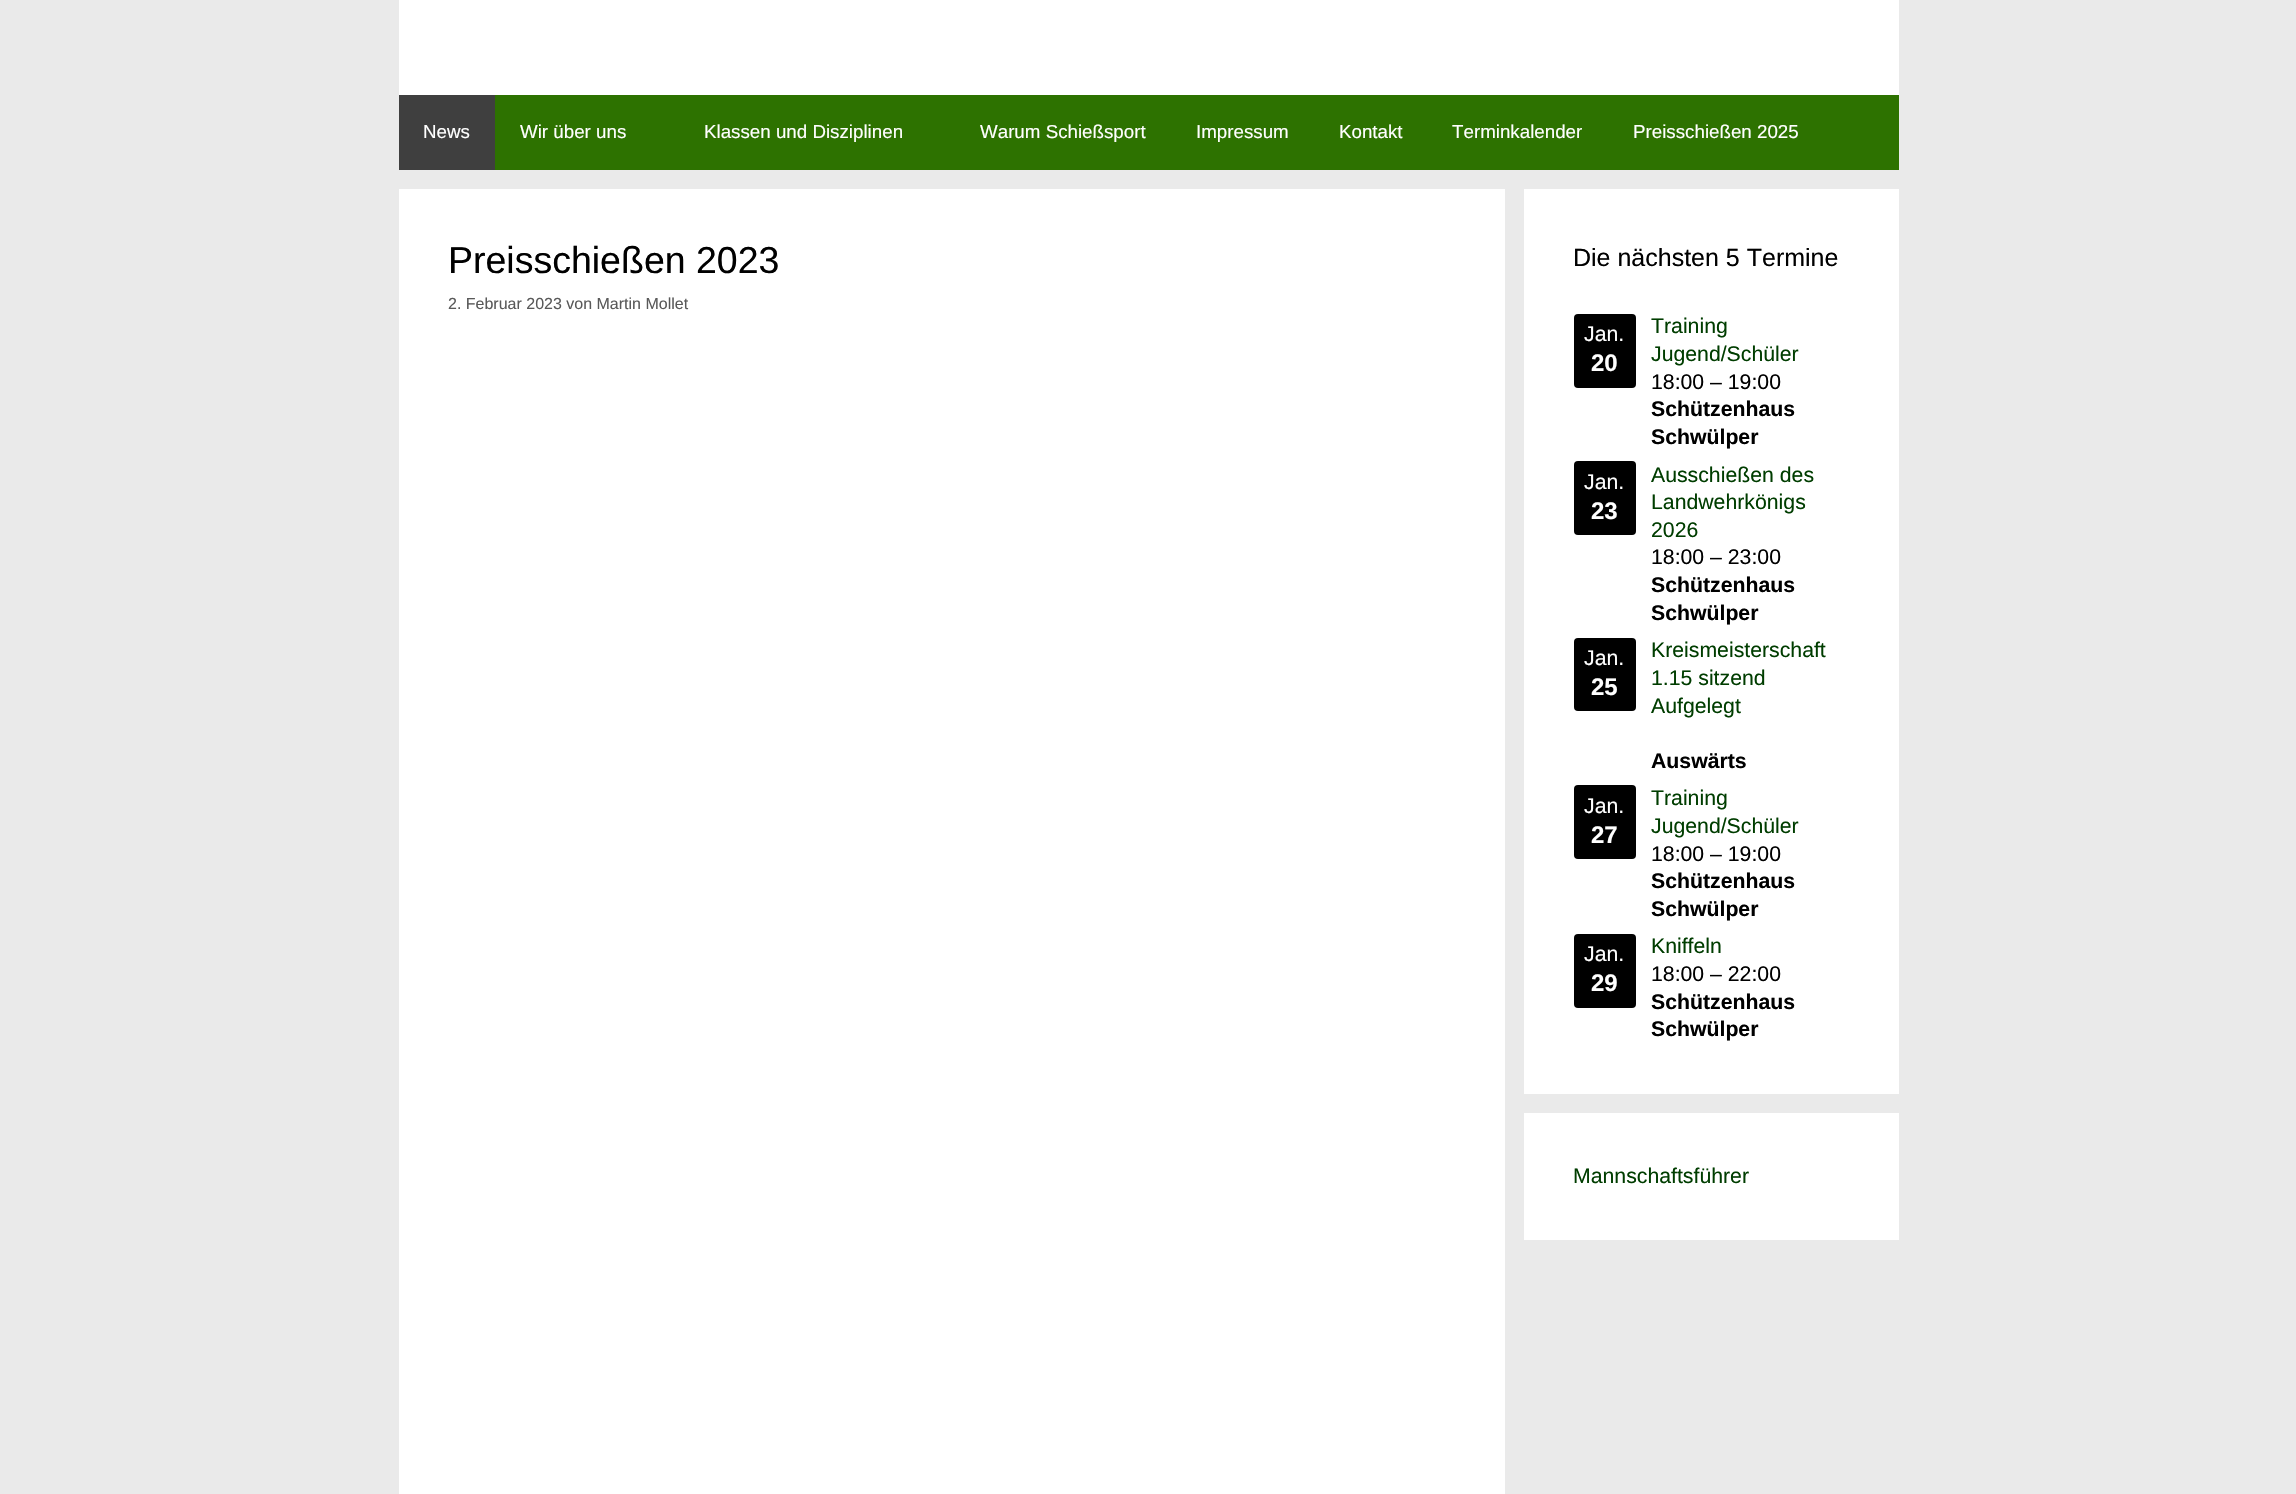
#include "include/core/SkBlurTypes.h"
#include "include/core/SkCanvas.h"
#include "include/core/SkData.h"
#include "include/core/SkFont.h"
#include "include/core/SkFontMgr.h"
#include "include/core/SkImage.h"
#include "include/core/SkMaskFilter.h"
#include "include/core/SkPaint.h"
#include "include/core/SkPathBuilder.h"
#include "include/core/SkTextBlob.h"
#include "include/effects/SkDashPathEffect.h"
#include "include/effects/SkGradientShader.h"
#include "include/utils/SkParsePath.h"

extern sk_sp<SkFontMgr> fontMgr;

static SkFont font(const char* family, int weight, float size, bool italic = false) {
    SkFontStyle style(weight, SkFontStyle::kNormal_Width,
        italic ? SkFontStyle::kItalic_Slant : SkFontStyle::kUpright_Slant);
    SkFont result(fontMgr->matchFamilyStyle(family, style), size);
    result.setSubpixel(true);
    return result;
}

static void drawLabel(SkCanvas* canvas, const char* s, float x, float y, const SkFont& font, SkColor color) {
    SkPaint ink(SkColor4f::FromColor(color));
    ink.setAntiAlias(true);
    canvas->drawString(s, x, y, font, ink);
}

static void fillRect(SkCanvas* canvas, float x, float y, float w, float h, SkColor color) {
    SkPaint ink(SkColor4f::FromColor(color));
    ink.setAntiAlias(true);
    canvas->drawRect(SkRect::MakeXYWH(x, y, w, h), ink);
}

static void fillRRect(SkCanvas* canvas, float x, float y, float w, float h, float radius, SkColor color) {
    SkPaint ink(SkColor4f::FromColor(color));
    ink.setAntiAlias(true);
    canvas->drawRoundRect(SkRect::MakeXYWH(x, y, w, h), radius, radius, ink);
}

void draw(SkCanvas* canvas) {
    SkPaint paint;
    paint.setAntiAlias(true);
    canvas->clear(0xFFEAEAEA);
    fillRect(canvas, 399, 0, 1500, 95, 0xFFFFFFFF);
    fillRect(canvas, 495, 95, 1404, 75, 0xFF2D7200);
    fillRect(canvas, 399, 95, 96, 75, 0xFF3F3F3F);
    SkFont font1 = font("Liberation Sans", 400, 18.75f);
    drawLabel(canvas, "News", 423, 138, font1, 0xFFFFFFFF);
    drawLabel(canvas, "Wir über uns", 520, 138, font1, 0xFFFFFFFF);
    drawLabel(canvas, "Klassen und Disziplinen", 704, 138, font1, 0xFFFFFFFF);
    drawLabel(canvas, "Warum Schießsport", 980, 138, font1, 0xFFFFFFFF);
    drawLabel(canvas, "Impressum", 1196, 138, font1, 0xFFFFFFFF);
    drawLabel(canvas, "Kontakt", 1339, 138, font1, 0xFFFFFFFF);
    drawLabel(canvas, "Terminkalender", 1452, 138, font1, 0xFFFFFFFF);
    drawLabel(canvas, "Preisschießen 2025", 1633, 138, font1, 0xFFFFFFFF);
    fillRect(canvas, 399, 189, 1106, 1305, 0xFFFFFFFF);
    SkFont font2 = font("Liberation Sans", 400, 37.5f);
    drawLabel(canvas, "Preisschießen 2023", 448, 273, font2, 0xFF000000);
    SkFont font3 = font("Liberation Sans", 400, 16);
    drawLabel(canvas, "2. Februar 2023 von Martin Mollet", 448, 309, font3, 0xFF595959);
    fillRect(canvas, 1524, 189, 375, 905, 0xFFFFFFFF);
    SkFont font4 = font("Liberation Sans", 400, 25);
    drawLabel(canvas, "Die nächsten 5 Termine", 1573, 266, font4, 0xFF000000);
    fillRRect(canvas, 1574, 314, 62, 74, 4, 0xFF000000);
    SkFont font5 = font("Liberation Sans", 400, 21.25f);
    drawLabel(canvas, "Jan.", 1584, 341, font5, 0xFFFFFFFF);
    SkFont font6 = font("Liberation Sans", 700, 24);
    drawLabel(canvas, "20", 1591, 371, font6, 0xFFFFFFFF);
    drawLabel(canvas, "Training", 1651, 333, font5, 0xFF003D00);
    drawLabel(canvas, "Jugend/Schüler", 1651, 361, font5, 0xFF003D00);
    drawLabel(canvas, "18:00 – 19:00", 1651, 389, font5, 0xFF000000);
    SkFont font7 = font("Liberation Sans", 700, 21.25f);
    drawLabel(canvas, "Schützenhaus", 1651, 416, font7, 0xFF000000);
    drawLabel(canvas, "Schwülper", 1651, 444, font7, 0xFF000000);
    fillRRect(canvas, 1574, 461, 62, 74, 4, 0xFF000000);
    drawLabel(canvas, "Jan.", 1584, 489, font5, 0xFFFFFFFF);
    drawLabel(canvas, "23", 1591, 519, font6, 0xFFFFFFFF);
    drawLabel(canvas, "Ausschießen des", 1651, 482, font5, 0xFF003D00);
    drawLabel(canvas, "Landwehrkönigs", 1651, 509, font5, 0xFF003D00);
    drawLabel(canvas, "2026", 1651, 537, font5, 0xFF003D00);
    drawLabel(canvas, "18:00 – 23:00", 1651, 564, font5, 0xFF000000);
    drawLabel(canvas, "Schützenhaus", 1651, 592, font7, 0xFF000000);
    drawLabel(canvas, "Schwülper", 1651, 620, font7, 0xFF000000);
    fillRRect(canvas, 1574, 638, 62, 73, 4, 0xFF000000);
    drawLabel(canvas, "Jan.", 1584, 665, font5, 0xFFFFFFFF);
    drawLabel(canvas, "25", 1591, 695, font6, 0xFFFFFFFF);
    drawLabel(canvas, "Kreismeisterschaft", 1651, 657, font5, 0xFF003D00);
    drawLabel(canvas, "1.15 sitzend", 1651, 685, font5, 0xFF003D00);
    drawLabel(canvas, "Aufgelegt", 1651, 713, font5, 0xFF003D00);
    drawLabel(canvas, "Auswärts", 1651, 768, font7, 0xFF000000);
    fillRRect(canvas, 1574, 785, 62, 74, 4, 0xFF000000);
    drawLabel(canvas, "Jan.", 1584, 813, font5, 0xFFFFFFFF);
    drawLabel(canvas, "27", 1591, 843, font6, 0xFFFFFFFF);
    drawLabel(canvas, "Training", 1651, 805, font5, 0xFF003D00);
    drawLabel(canvas, "Jugend/Schüler", 1651, 833, font5, 0xFF003D00);
    drawLabel(canvas, "18:00 – 19:00", 1651, 861, font5, 0xFF000000);
    drawLabel(canvas, "Schützenhaus", 1651, 888, font7, 0xFF000000);
    drawLabel(canvas, "Schwülper", 1651, 916, font7, 0xFF000000);
    fillRRect(canvas, 1574, 934, 62, 74, 4, 0xFF000000);
    drawLabel(canvas, "Jan.", 1584, 961, font5, 0xFFFFFFFF);
    drawLabel(canvas, "29", 1591, 991, font6, 0xFFFFFFFF);
    drawLabel(canvas, "Kniffeln", 1651, 953, font5, 0xFF003D00);
    drawLabel(canvas, "18:00 – 22:00", 1651, 981, font5, 0xFF000000);
    drawLabel(canvas, "Schützenhaus", 1651, 1009, font7, 0xFF000000);
    drawLabel(canvas, "Schwülper", 1651, 1036, font7, 0xFF000000);
    fillRect(canvas, 1524, 1113, 375, 127, 0xFFFFFFFF);
    drawLabel(canvas, "Mannschaftsführer", 1573, 1183, font5, 0xFF003D00);
}
